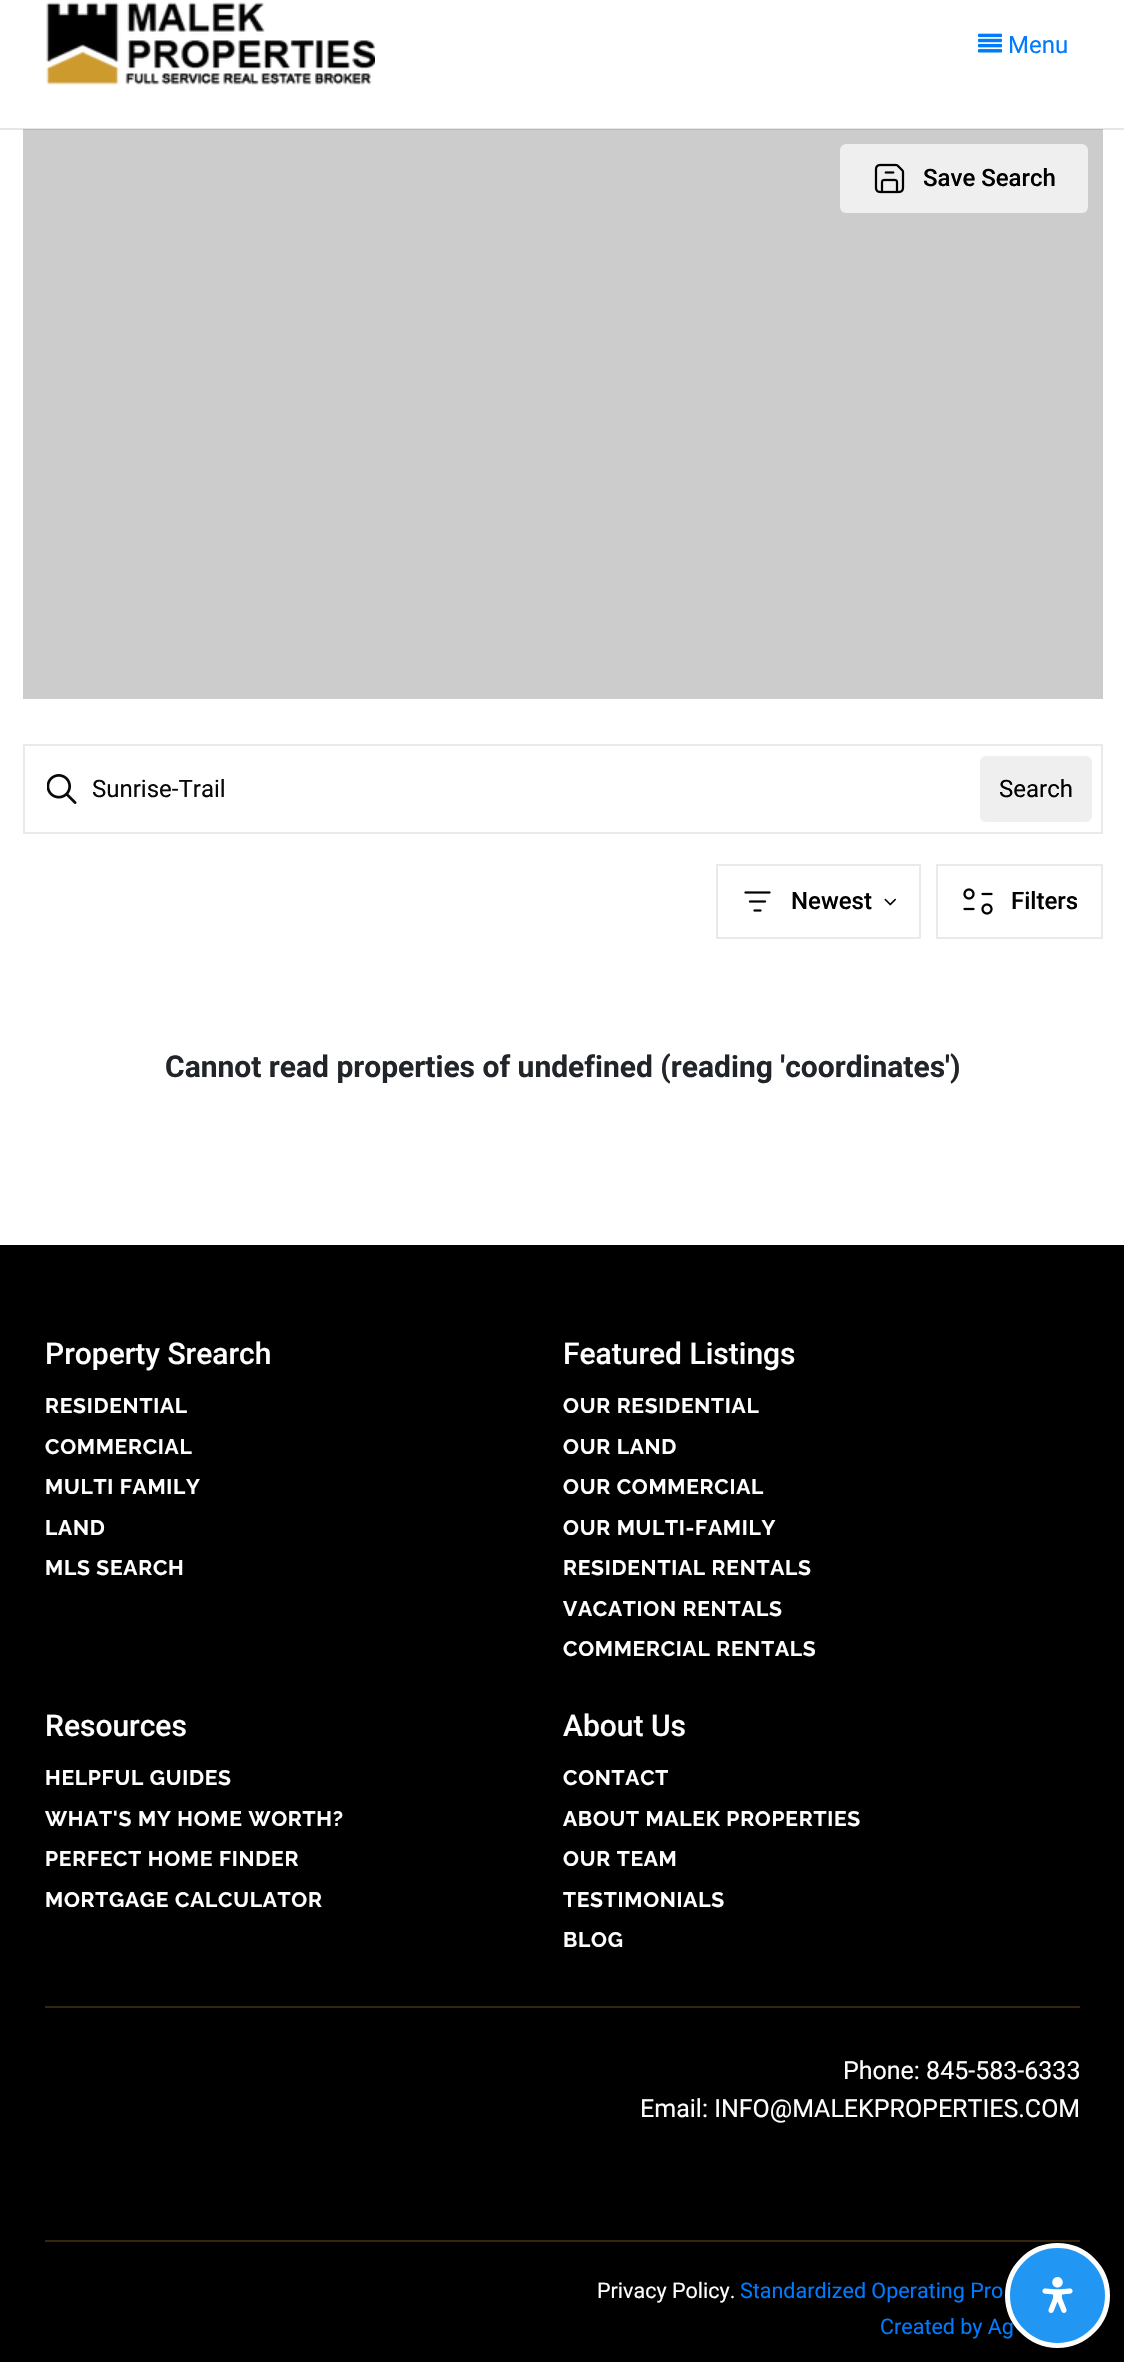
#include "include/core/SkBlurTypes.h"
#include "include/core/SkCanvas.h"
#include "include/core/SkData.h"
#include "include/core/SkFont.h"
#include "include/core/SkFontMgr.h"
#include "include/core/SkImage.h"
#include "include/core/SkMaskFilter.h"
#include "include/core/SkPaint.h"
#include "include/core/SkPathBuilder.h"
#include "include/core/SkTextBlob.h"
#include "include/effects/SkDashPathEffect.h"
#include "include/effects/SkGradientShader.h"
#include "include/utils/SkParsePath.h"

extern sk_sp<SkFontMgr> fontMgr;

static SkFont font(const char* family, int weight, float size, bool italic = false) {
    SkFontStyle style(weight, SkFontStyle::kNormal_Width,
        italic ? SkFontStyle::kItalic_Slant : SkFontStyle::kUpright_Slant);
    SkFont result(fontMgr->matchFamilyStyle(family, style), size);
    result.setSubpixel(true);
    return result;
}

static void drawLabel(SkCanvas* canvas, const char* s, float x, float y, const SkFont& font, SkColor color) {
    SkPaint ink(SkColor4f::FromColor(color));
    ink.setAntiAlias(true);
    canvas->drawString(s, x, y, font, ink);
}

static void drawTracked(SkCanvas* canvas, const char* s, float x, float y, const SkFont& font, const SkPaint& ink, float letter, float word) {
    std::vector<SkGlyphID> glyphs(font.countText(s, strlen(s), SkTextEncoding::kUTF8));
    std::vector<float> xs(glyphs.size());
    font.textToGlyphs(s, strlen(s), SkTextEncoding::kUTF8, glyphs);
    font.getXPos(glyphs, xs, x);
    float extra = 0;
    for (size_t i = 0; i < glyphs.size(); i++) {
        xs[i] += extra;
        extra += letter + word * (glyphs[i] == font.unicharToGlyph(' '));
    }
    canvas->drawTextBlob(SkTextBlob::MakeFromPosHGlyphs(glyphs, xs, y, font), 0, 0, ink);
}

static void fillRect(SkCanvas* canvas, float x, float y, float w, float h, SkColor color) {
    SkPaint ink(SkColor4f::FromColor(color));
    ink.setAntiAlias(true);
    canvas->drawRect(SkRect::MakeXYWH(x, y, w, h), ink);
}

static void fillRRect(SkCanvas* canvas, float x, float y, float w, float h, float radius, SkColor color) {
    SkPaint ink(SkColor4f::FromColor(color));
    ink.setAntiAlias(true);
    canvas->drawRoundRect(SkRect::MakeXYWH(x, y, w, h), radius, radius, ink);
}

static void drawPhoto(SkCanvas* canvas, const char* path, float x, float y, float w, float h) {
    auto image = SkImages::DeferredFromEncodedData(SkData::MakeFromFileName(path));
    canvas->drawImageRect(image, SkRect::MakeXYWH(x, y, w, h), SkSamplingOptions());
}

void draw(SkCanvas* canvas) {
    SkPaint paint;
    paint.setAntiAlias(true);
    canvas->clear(0xFFFFFFFF);
    fillRect(canvas, 0, 128, 1124, 2, 0xFFE6E6E6);
    drawPhoto(canvas, "assets/img1.png", 46, 2, 329, 83);
    drawPhoto(canvas, "assets/img2.png", 978, 33, 24, 20);
    SkFont font1 = font("Roboto", 400, 24);
    drawLabel(canvas, "Menu", 1008, 53, font1, 0xFF007BFF);
    fillRect(canvas, 23, 130, 1080, 569, 0xFFCCCCCC);
    fillRect(canvas, 23, 129, 1080, 1, 0xFFB8B8B8);
    fillRRect(canvas, 840, 144, 248, 69, 6, 0xFFEFEFEF);
    drawPhoto(canvas, "assets/img3.png", 874, 163, 31, 31);
    SkFont font2 = font("Roboto", 500, 24);
    drawLabel(canvas, "Save Search", 923, 186, font2, 0xFF000000);
    paint.setStroke(true);
    paint.setStrokeWidth(2);
    paint.setColor(0xFFEAEAEA);
    canvas->drawRect(SkRect::MakeXYWH(24, 745, 1078, 88), paint);
    drawPhoto(canvas, "assets/img4.png", 47, 774, 30, 30);
    drawLabel(canvas, "Sunrise-Trail", 92, 797, font1, 0xFF080808);
    fillRRect(canvas, 980, 756, 112, 66, 6, 0xFFEFEFEF);
    drawLabel(canvas, "Search", 999, 797, font1, 0xFF000000);
    canvas->drawRect(SkRect::MakeXYWH(717, 865, 203, 73), paint);
    drawPhoto(canvas, "assets/img5.png", 744, 891, 27, 21);
    drawLabel(canvas, "Newest", 791, 909, font2, 0xFF000000);
    drawPhoto(canvas, "assets/img6.png", 884, 898, 13, 8);
    canvas->drawRect(SkRect::MakeXYWH(937, 865, 165, 73), paint);
    drawPhoto(canvas, "assets/img7.png", 963, 888, 30, 27);
    drawLabel(canvas, "Filters", 1011, 909, font2, 0xFF000000);
    SkFont font3 = font("Roboto", 700, 30);
    drawLabel(canvas, "Cannot read properties of undefined (reading 'coordinates')", 165, 1077, font3, 0xFF212529);
    fillRect(canvas, 0, 1245, 1124, 1117, 0xFF000000);
    SkFont font4 = font("Roboto", 500, 30);
    drawLabel(canvas, "Property Srearch", 45, 1364, font4, 0xFFFFFFFF);
    SkFont font5 = font("Raleway", 700, 21);
    paint.setStroke(false);
    paint.setColor(0xFFFFFFFF);
    drawTracked(canvas, "RESIDENTIAL", 45, 1413, font5, paint, 0.75f, 0);
    drawTracked(canvas, "COMMERCIAL", 45, 1454, font5, paint, 0.75f, 0);
    drawTracked(canvas, "MULTI FAMILY", 45, 1494, font5, paint, 0.75f, 0);
    drawTracked(canvas, "LAND", 45, 1535, font5, paint, 0.75f, 0);
    drawTracked(canvas, "MLS SEARCH", 45, 1575, font5, paint, 0.75f, 0);
    drawLabel(canvas, "Featured Listings", 563, 1364, font4, 0xFFFFFFFF);
    drawTracked(canvas, "OUR RESIDENTIAL", 563, 1413, font5, paint, 0.75f, 0);
    drawTracked(canvas, "OUR LAND", 563, 1454, font5, paint, 0.75f, 0);
    drawTracked(canvas, "OUR COMMERCIAL", 563, 1494, font5, paint, 0.75f, 0);
    drawTracked(canvas, "OUR MULTI-FAMILY", 563, 1535, font5, paint, 0.75f, 0);
    drawTracked(canvas, "RESIDENTIAL RENTALS", 563, 1575, font5, paint, 0.75f, 0);
    drawTracked(canvas, "VACATION RENTALS", 563, 1616, font5, paint, 0.75f, 0);
    drawTracked(canvas, "COMMERCIAL RENTALS", 563, 1656, font5, paint, 0.75f, 0);
    drawLabel(canvas, "Resources", 45, 1736, font4, 0xFFFFFFFF);
    drawTracked(canvas, "HELPFUL GUIDES", 45, 1785, font5, paint, 0.75f, 0);
    drawTracked(canvas, "WHAT'S MY HOME WORTH?", 45, 1826, font5, paint, 0.75f, 0);
    drawTracked(canvas, "PERFECT HOME FINDER", 45, 1866, font5, paint, 0.75f, 0);
    drawTracked(canvas, "MORTGAGE CALCULATOR", 45, 1907, font5, paint, 0.75f, 0);
    drawLabel(canvas, "About Us", 563, 1736, font4, 0xFFFFFFFF);
    drawTracked(canvas, "CONTACT", 563, 1785, font5, paint, 0.75f, 0);
    drawTracked(canvas, "ABOUT MALEK PROPERTIES", 563, 1826, font5, paint, 0.75f, 0);
    drawTracked(canvas, "OUR TEAM", 563, 1866, font5, paint, 0.75f, 0);
    drawTracked(canvas, "TESTIMONIALS", 563, 1907, font5, paint, 0.75f, 0);
    drawTracked(canvas, "BLOG", 563, 1947, font5, paint, 0.75f, 0);
    fillRect(canvas, 45, 2006, 1035, 2, 0xFF33260D);
    fillRect(canvas, 45, 2240, 1035, 2, 0xFF33260D);
    SkFont font6 = font("Roboto", 400, 25);
    drawLabel(canvas, "Phone: 845-583-6333", 843, 2079, font6, 0xFFFFFFFF);
    drawLabel(canvas, "Email: INFO@MALEKPROPERTIES.COM", 640, 2117, font6, 0xFFFFFFFF);
    SkFont font7 = font("Roboto", 400, 21.5f);
    drawLabel(canvas, "Privacy Policy.", 597, 2298, font7, 0xFFFFFFFF);
    drawLabel(canvas, "Standardized Operating Pro", 740, 2298, font7, 0xFF007BFF);
    drawLabel(canvas, "Created by Ag", 880, 2334, font7, 0xFF007BFF);
    paint.setColor(0xFF2196F3);
    canvas->drawCircle(1057.5f, 2295.5f, 50, paint);
    paint.setStroke(true);
    paint.setStrokeWidth(5);
    paint.setColor(0xFFFFFFFF);
    canvas->drawCircle(1057.5f, 2295.5f, 50, paint);
    drawPhoto(canvas, "assets/img8.png", 1042, 2277, 31, 36);
}
